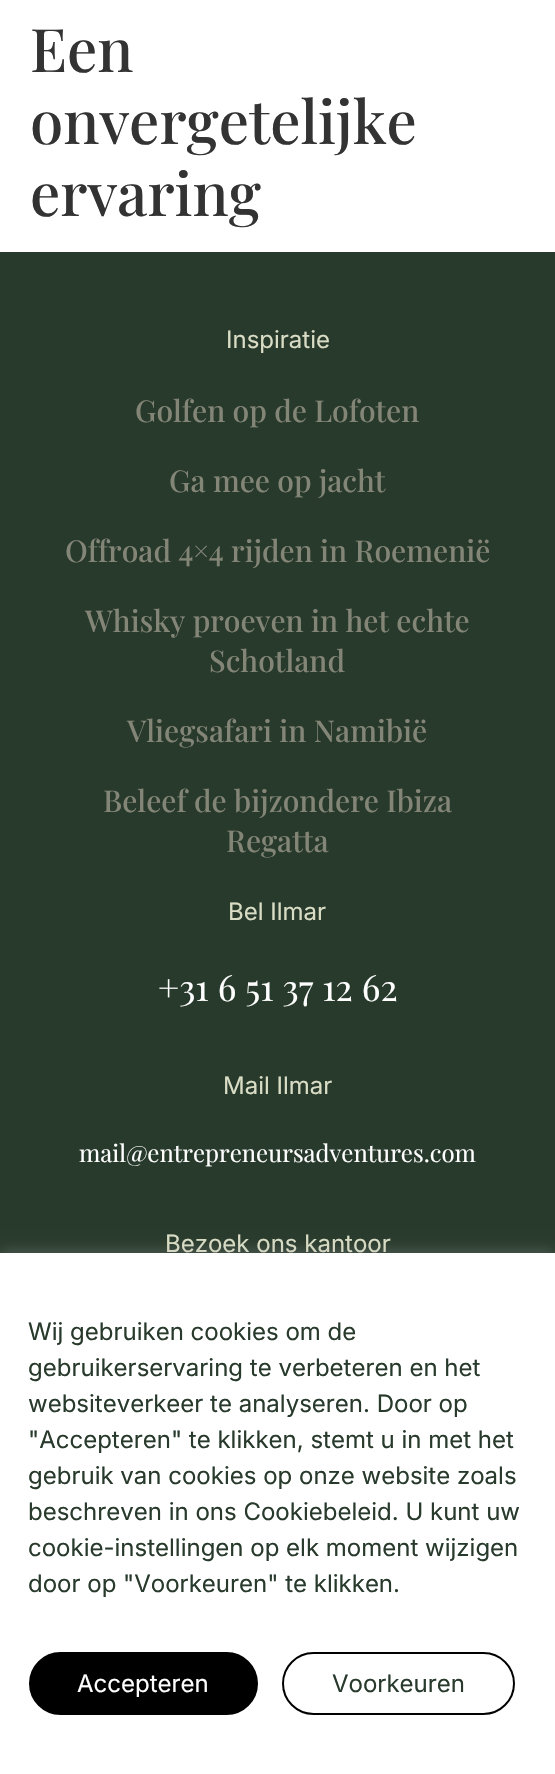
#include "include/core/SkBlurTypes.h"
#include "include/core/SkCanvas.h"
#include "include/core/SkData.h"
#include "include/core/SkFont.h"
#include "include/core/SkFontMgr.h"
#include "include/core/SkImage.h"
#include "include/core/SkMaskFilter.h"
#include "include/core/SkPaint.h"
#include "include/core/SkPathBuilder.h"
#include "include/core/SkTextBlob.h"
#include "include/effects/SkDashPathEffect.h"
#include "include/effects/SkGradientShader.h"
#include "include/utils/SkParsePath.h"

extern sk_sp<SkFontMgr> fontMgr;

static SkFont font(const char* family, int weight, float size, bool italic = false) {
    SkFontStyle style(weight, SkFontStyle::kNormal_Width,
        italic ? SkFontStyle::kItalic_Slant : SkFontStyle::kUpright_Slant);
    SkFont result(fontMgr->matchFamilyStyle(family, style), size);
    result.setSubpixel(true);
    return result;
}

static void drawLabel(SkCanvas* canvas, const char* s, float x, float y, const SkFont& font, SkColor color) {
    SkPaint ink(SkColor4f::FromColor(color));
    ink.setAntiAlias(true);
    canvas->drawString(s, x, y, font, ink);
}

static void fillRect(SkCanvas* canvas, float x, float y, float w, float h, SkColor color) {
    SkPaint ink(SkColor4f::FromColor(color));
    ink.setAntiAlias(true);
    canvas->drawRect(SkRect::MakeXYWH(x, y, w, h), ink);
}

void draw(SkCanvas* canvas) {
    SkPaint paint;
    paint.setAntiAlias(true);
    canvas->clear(0xFFFFFFFF);
    SkFont font1 = font("Playfair Display", 500, 60);
    drawLabel(canvas, "Een", 30, 72, font1, 0xFF333333);
    drawLabel(canvas, "onvergetelijke", 30, 144, font1, 0xFF333333);
    drawLabel(canvas, "ervaring", 30, 216, font1, 0xFF333333);
    fillRect(canvas, 0, 252, 555, 1001, 0xFF283A2C);
    SkFont font2 = font("Inter", 400, 24);
    drawLabel(canvas, "Inspiratie", 226, 348, font2, 0xFFDADDC5);
    SkFont font3 = font("Playfair Display", 500, 30);
    drawLabel(canvas, "Golfen op de Lofoten", 135, 422, font3, 0xFF838577);
    drawLabel(canvas, "Ga mee op jacht", 169, 492, font3, 0xFF838577);
    drawLabel(canvas, "Offroad 4×4 rijden in Roemenië", 65, 562, font3, 0xFF838577);
    drawLabel(canvas, "Whisky proeven in het echte", 85, 632, font3, 0xFF838577);
    drawLabel(canvas, "Schotland", 209, 672, font3, 0xFF838577);
    drawLabel(canvas, "Vliegsafari in Namibië", 127, 742, font3, 0xFF838577);
    drawLabel(canvas, "Beleef de bijzondere Ibiza", 103, 812, font3, 0xFF838577);
    drawLabel(canvas, "Regatta", 226, 852, font3, 0xFF838577);
    drawLabel(canvas, "Bel Ilmar", 228, 920, font2, 0xFFDADDC5);
    SkFont font4 = font("Playfair Display", 400, 36);
    drawLabel(canvas, "+31 6 51 37 12 62", 158, 1001, font4, 0xFFFFFFFF);
    drawLabel(canvas, "Mail Ilmar", 223, 1094, font2, 0xFFDADDC5);
    SkFont font5 = font("Playfair Display", 400, 24);
    drawLabel(canvas, "mail@entrepreneursadventures.com", 79, 1162, font5, 0xFFFFFFFF);
    drawLabel(canvas, "Bezoek ons kantoor", 165, 1252, font2, 0xFFDADDC5);
    paint.setColor(0x4DACABAB);
    paint.setMaskFilter(SkMaskFilter::MakeBlur(kNormal_SkBlurStyle, 7.5f));
    canvas->drawRect(SkRect::MakeXYWH(0, 1251, 555, 522), paint);
    paint.setMaskFilter(nullptr);
    fillRect(canvas, 0, 1253, 555, 521, 0xFFFFFFFF);
    drawLabel(canvas, "Wij gebruiken cookies om de", 28, 1340, font2, 0xFF283A2C);
    drawLabel(canvas, "gebruikerservaring te verbeteren en het", 28, 1376, font2, 0xFF283A2C);
    drawLabel(canvas, "websiteverkeer te analyseren. Door op", 28, 1412, font2, 0xFF283A2C);
    drawLabel(canvas, "\"Accepteren\" te klikken, stemt u in met het", 28, 1448, font2, 0xFF283A2C);
    drawLabel(canvas, "gebruik van cookies op onze website zoals", 28, 1484, font2, 0xFF283A2C);
    drawLabel(canvas, "beschreven in ons Cookiebeleid. U kunt uw", 28, 1520, font2, 0xFF283A2C);
    drawLabel(canvas, "cookie-instellingen op elk moment wijzigen", 28, 1556, font2, 0xFF283A2C);
    drawLabel(canvas, "door op \"Voorkeuren\" te klikken.", 28, 1592, font2, 0xFF283A2C);
    paint.setColor(0xFF000000);
    canvas->drawRoundRect(SkRect::MakeXYWH(30, 1653, 227, 61), 30.5f, 30.5f, paint);
    paint.setStroke(true);
    paint.setStrokeWidth(2);
    canvas->drawRoundRect(SkRect::MakeXYWH(30, 1653, 227, 61), 30.5f, 30.5f, paint);
    drawLabel(canvas, "Accepteren", 77, 1692, font2, 0xFFFFFFFF);
    canvas->drawRoundRect(SkRect::MakeXYWH(283, 1653, 231, 61), 30.5f, 30.5f, paint);
    drawLabel(canvas, "Voorkeuren", 332, 1692, font2, 0xFF283A2C);
}
